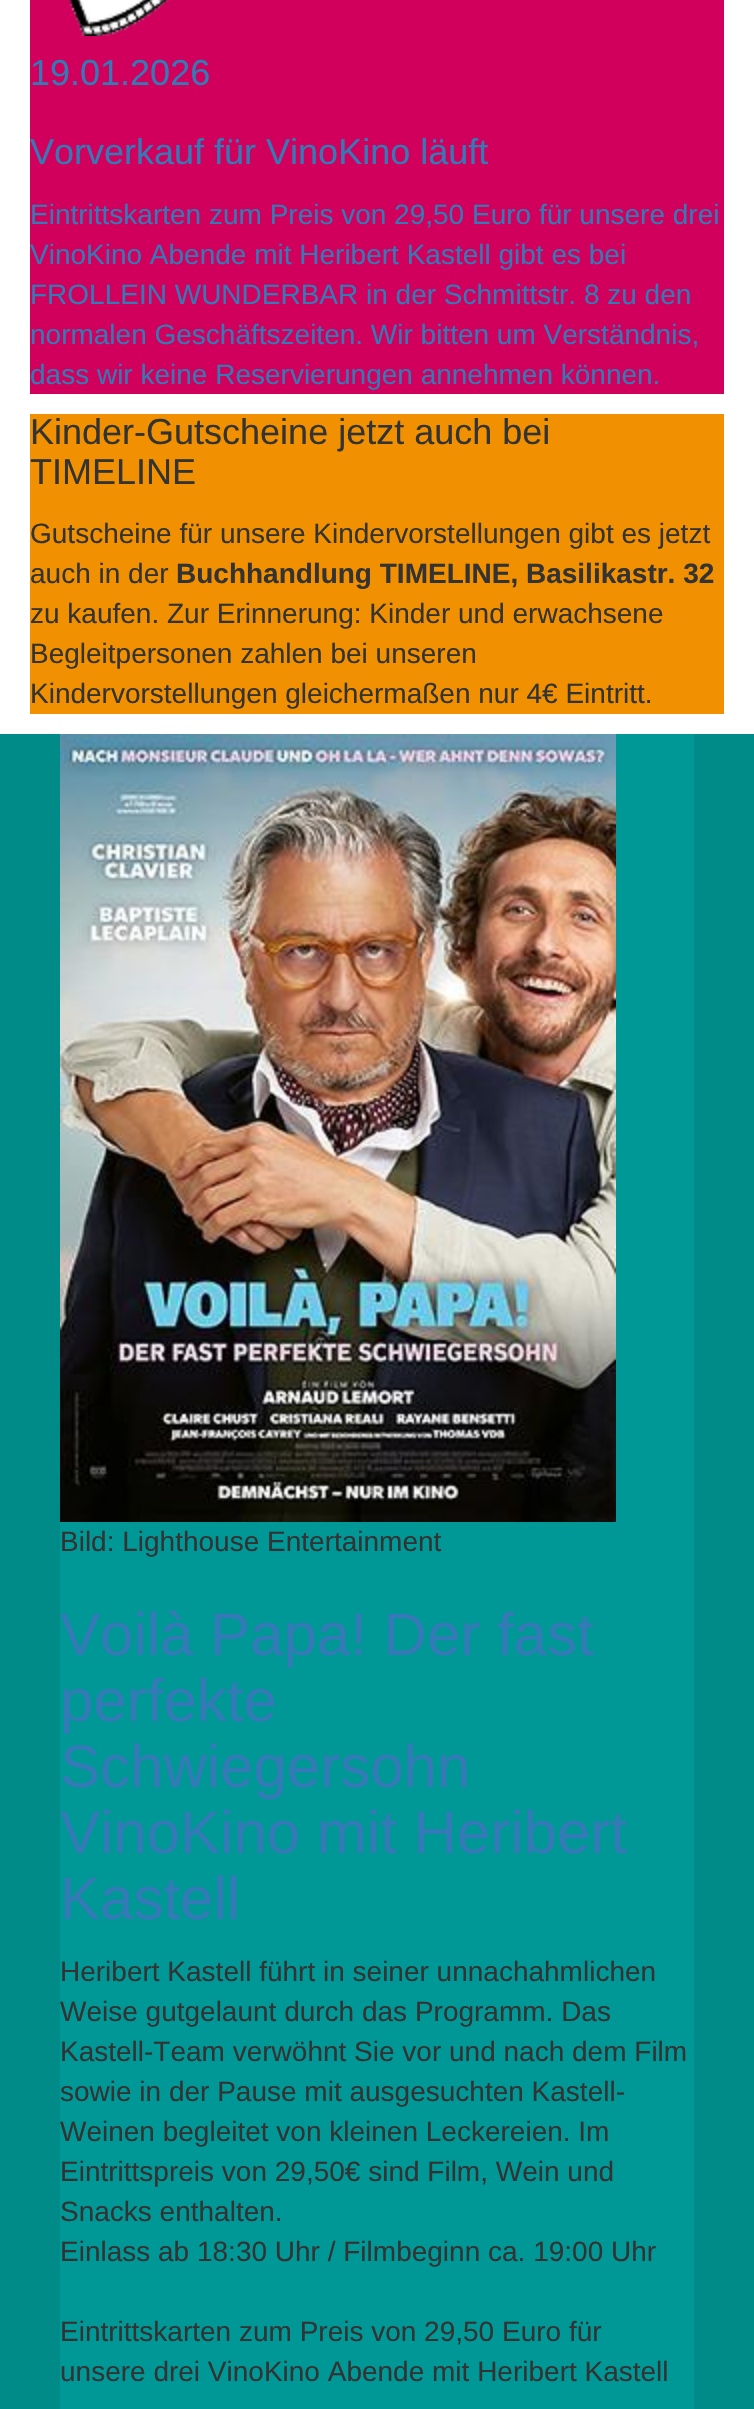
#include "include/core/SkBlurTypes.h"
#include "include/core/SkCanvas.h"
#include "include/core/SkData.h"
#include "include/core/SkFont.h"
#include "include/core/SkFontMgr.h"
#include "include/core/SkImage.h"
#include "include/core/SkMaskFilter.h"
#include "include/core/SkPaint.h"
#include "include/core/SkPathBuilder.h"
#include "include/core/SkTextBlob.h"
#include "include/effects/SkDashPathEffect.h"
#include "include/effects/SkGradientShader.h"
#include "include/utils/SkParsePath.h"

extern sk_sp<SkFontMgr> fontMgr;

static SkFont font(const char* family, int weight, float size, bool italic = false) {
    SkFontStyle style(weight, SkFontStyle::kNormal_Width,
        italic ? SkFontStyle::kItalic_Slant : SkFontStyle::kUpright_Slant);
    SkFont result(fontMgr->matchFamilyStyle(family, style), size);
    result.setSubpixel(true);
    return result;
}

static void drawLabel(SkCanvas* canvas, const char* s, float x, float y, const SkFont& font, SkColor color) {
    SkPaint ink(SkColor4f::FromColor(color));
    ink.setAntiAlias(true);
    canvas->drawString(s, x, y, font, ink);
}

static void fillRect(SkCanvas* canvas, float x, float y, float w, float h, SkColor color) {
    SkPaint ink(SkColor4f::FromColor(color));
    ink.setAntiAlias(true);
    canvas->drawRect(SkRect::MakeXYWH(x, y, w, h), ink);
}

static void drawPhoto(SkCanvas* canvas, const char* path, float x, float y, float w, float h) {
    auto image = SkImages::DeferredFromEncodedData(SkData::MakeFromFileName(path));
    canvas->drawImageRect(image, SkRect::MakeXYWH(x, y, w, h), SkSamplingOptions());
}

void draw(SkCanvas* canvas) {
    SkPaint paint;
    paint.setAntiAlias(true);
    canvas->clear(0xFFFFFFFF);
    fillRect(canvas, 30, 0, 694, 394, 0xFFD0005C);
    drawPhoto(canvas, "assets/img1.png", 67, 0, 104, 36);
    SkFont font1 = font("Liberation Sans", 400, 36);
    drawLabel(canvas, "19.01.2026", 30, 85, font1, 0xFF337AB7);
    drawLabel(canvas, "Vorverkauf für VinoKino läuft", 30, 164, font1, 0xFF337AB7);
    SkFont font2 = font("Liberation Sans", 400, 28);
    drawLabel(canvas, "Eintrittskarten zum Preis von 29,50 Euro für unsere drei", 30, 224, font2, 0xFF337AB7);
    drawLabel(canvas, "VinoKino Abende mit Heribert Kastell gibt es bei", 30, 264, font2, 0xFF337AB7);
    drawLabel(canvas, "FROLLEIN WUNDERBAR in der Schmittstr. 8 zu den", 30, 304, font2, 0xFF337AB7);
    drawLabel(canvas, "normalen Geschäftszeiten. Wir bitten um Verständnis,", 30, 344, font2, 0xFF337AB7);
    drawLabel(canvas, "dass wir keine Reservierungen annehmen können.", 30, 384, font2, 0xFF337AB7);
    fillRect(canvas, 30, 414, 694, 300, 0xFFF19000);
    drawLabel(canvas, "Kinder-Gutscheine jetzt auch bei", 30, 444, font1, 0xFF333333);
    drawLabel(canvas, "TIMELINE", 30, 484, font1, 0xFF333333);
    drawLabel(canvas, "Gutscheine für unsere Kindervorstellungen gibt es jetzt", 30, 543, font2, 0xFF333333);
    drawLabel(canvas, "auch in der", 30, 583, font2, 0xFF333333);
    SkFont font3 = font("Liberation Sans", 700, 28);
    drawLabel(canvas, "Buchhandlung TIMELINE, Basilikastr. 32", 176, 583, font3, 0xFF333333);
    drawLabel(canvas, "zu kaufen. Zur Erinnerung: Kinder und erwachsene", 30, 623, font2, 0xFF333333);
    drawLabel(canvas, "Begleitpersonen zahlen bei unseren", 30, 663, font2, 0xFF333333);
    drawLabel(canvas, "Kindervorstellungen gleichermaßen nur 4€ Eintritt.", 30, 703, font2, 0xFF333333);
    fillRect(canvas, 0, 734, 754, 1675, 0xFF008B88);
    fillRect(canvas, 60, 734, 634, 1675, 0xFF009797);
    drawPhoto(canvas, "assets/img2.png", 60, 734, 556, 788);
    drawLabel(canvas, "Bild: Lighthouse Entertainment", 60, 1551, font2, 0xFF333333);
    SkFont font4 = font("Liberation Sans", 400, 60);
    drawLabel(canvas, "Voilà Papa! Der fast", 60, 1655, font4, 0xFF337AB7);
    drawLabel(canvas, "perfekte", 60, 1721, font4, 0xFF337AB7);
    drawLabel(canvas, "Schwiegersohn", 60, 1787, font4, 0xFF337AB7);
    drawLabel(canvas, "VinoKino mit Heribert", 60, 1853, font4, 0xFF337AB7);
    drawLabel(canvas, "Kastell", 60, 1919, font4, 0xFF337AB7);
    drawLabel(canvas, "Heribert Kastell führt in seiner unnachahmlichen", 60, 1981, font2, 0xFF333333);
    drawLabel(canvas, "Weise gutgelaunt durch das Programm. Das", 60, 2021, font2, 0xFF333333);
    drawLabel(canvas, "Kastell-Team verwöhnt Sie vor und nach dem Film", 60, 2061, font2, 0xFF333333);
    drawLabel(canvas, "sowie in der Pause mit ausgesuchten Kastell-", 60, 2101, font2, 0xFF333333);
    drawLabel(canvas, "Weinen begleitet von kleinen Leckereien. Im", 60, 2141, font2, 0xFF333333);
    drawLabel(canvas, "Eintrittspreis von 29,50€ sind Film, Wein und", 60, 2181, font2, 0xFF333333);
    drawLabel(canvas, "Snacks enthalten.", 60, 2221, font2, 0xFF333333);
    drawLabel(canvas, "Einlass ab 18:30 Uhr / Filmbeginn ca. 19:00 Uhr", 60, 2261, font2, 0xFF333333);
    drawLabel(canvas, "Eintrittskarten zum Preis von 29,50 Euro für", 60, 2341, font2, 0xFF333333);
    drawLabel(canvas, "unsere drei VinoKino Abende mit Heribert Kastell", 60, 2381, font2, 0xFF333333);
}
